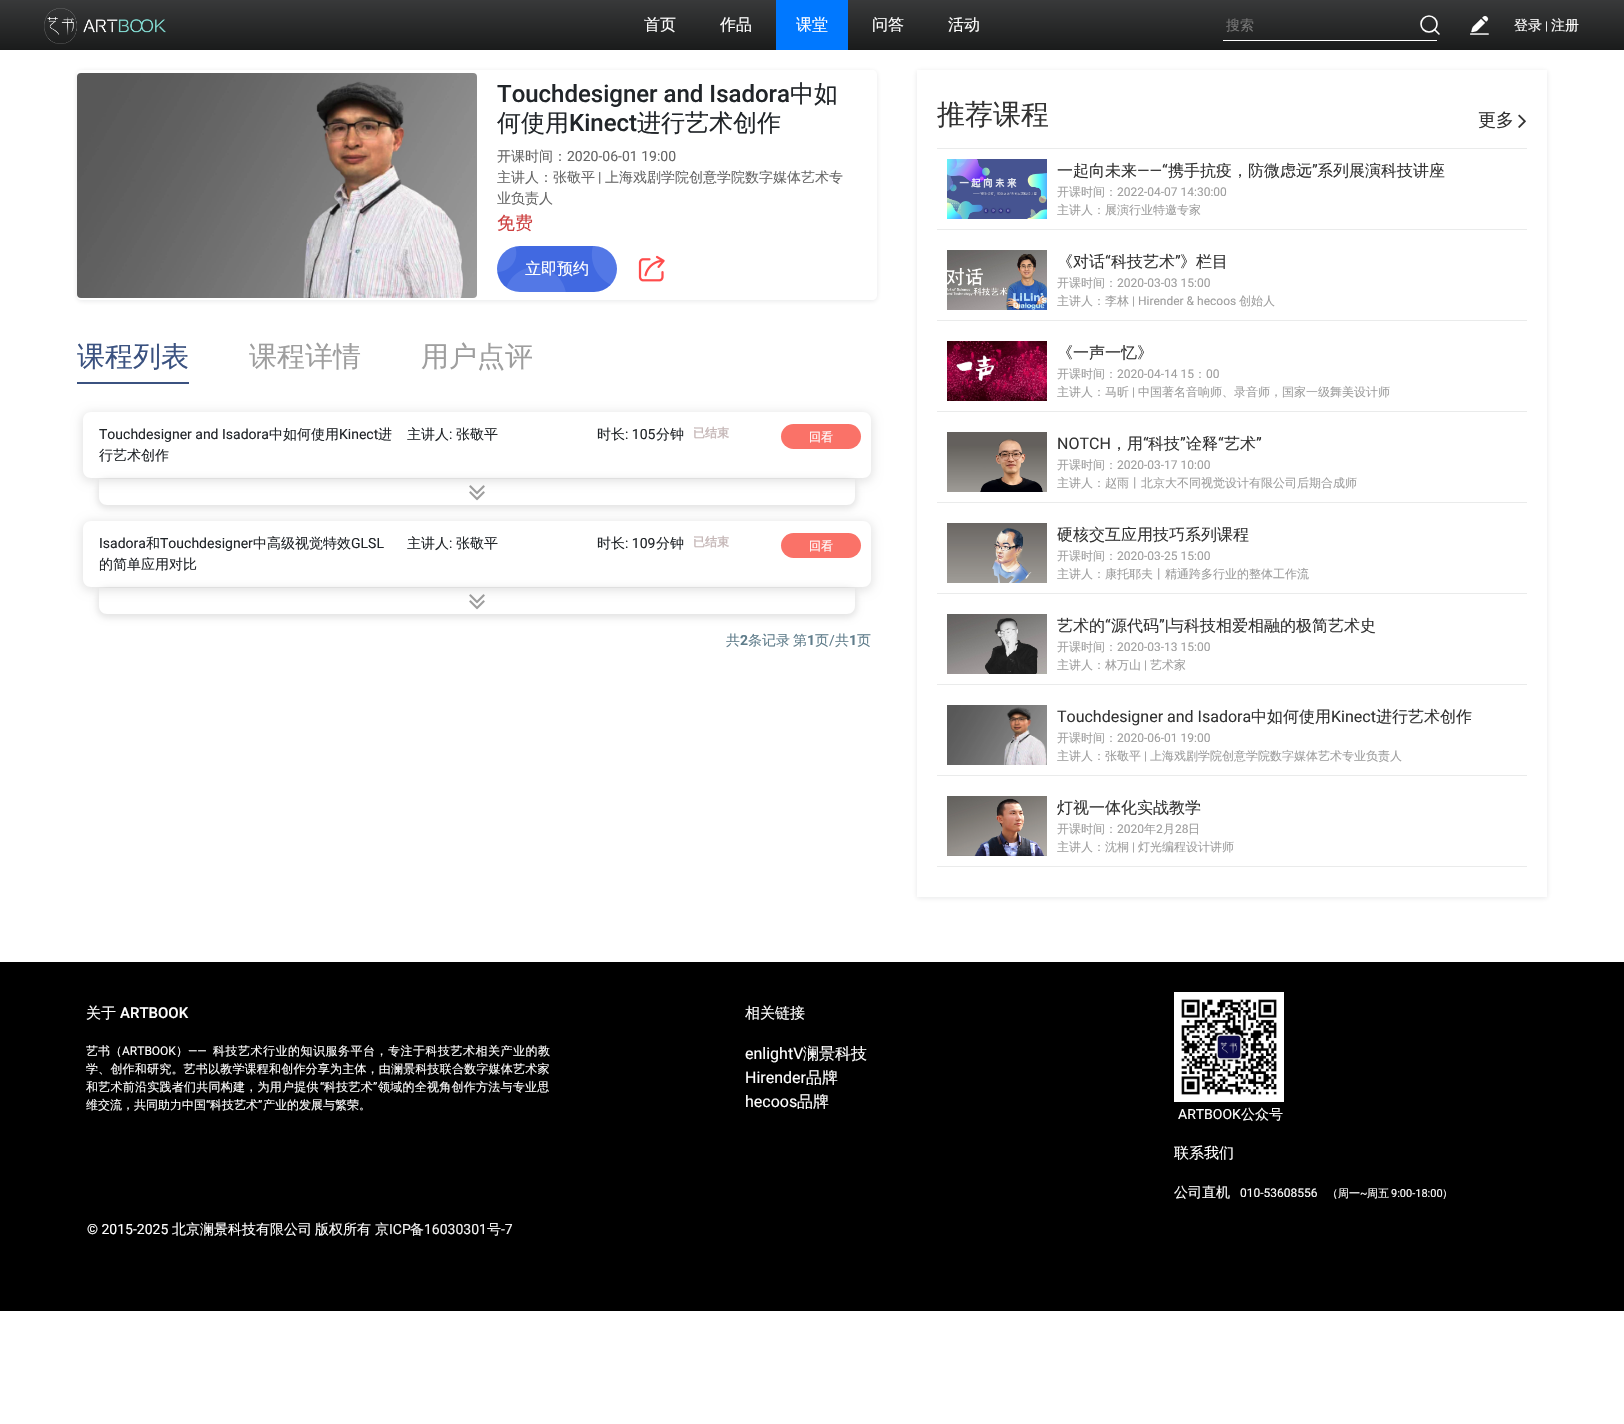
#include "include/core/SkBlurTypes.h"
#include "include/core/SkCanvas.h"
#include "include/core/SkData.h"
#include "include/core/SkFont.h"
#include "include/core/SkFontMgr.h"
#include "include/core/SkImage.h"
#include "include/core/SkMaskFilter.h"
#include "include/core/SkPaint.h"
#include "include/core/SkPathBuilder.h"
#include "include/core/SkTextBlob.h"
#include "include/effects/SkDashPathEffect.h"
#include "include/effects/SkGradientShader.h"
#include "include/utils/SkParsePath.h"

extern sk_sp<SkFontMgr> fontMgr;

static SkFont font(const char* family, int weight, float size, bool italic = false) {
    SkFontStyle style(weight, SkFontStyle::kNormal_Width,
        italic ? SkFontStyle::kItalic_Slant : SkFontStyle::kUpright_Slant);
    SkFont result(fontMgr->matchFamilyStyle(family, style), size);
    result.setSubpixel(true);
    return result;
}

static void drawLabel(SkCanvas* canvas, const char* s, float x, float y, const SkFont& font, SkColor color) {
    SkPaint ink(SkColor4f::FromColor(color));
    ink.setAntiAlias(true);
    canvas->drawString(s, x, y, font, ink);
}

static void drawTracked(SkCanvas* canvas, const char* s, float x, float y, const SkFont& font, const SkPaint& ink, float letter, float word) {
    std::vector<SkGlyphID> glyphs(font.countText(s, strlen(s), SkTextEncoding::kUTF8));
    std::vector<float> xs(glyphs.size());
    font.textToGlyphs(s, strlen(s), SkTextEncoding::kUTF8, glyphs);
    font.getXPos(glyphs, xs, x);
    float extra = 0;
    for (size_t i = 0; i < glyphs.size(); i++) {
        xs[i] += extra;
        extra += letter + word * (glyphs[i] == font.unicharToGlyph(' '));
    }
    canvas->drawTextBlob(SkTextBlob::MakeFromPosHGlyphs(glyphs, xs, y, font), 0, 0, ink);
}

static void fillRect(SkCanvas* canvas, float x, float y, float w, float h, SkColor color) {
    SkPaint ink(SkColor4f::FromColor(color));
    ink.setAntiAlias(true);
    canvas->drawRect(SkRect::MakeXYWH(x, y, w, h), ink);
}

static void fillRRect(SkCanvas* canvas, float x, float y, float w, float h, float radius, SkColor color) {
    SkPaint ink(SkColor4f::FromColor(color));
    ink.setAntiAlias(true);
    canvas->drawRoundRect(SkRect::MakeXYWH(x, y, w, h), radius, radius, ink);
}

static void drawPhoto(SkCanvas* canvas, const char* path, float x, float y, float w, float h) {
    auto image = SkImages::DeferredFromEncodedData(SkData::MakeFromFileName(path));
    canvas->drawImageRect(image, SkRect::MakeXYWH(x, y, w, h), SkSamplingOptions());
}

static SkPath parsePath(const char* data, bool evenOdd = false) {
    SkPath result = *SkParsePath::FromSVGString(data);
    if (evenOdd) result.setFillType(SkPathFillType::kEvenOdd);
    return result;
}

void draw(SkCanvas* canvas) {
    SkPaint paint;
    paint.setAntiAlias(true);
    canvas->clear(0xFFFFFFFF);
    {
        const SkColor colors[] = {0xFF38393A, 0xFF1A1B1B};
        const float stops[] = {0, 1};
        const SkPoint ends[] = {{812, 0}, {812, 50}};
        paint.setShader(SkGradientShader::MakeLinear(ends, colors, stops, 2, SkTileMode::kClamp));
        paint.setAlpha(255);
    }
    canvas->drawRect(SkRect::MakeXYWH(0, 0, 1624, 50), paint);
    drawPhoto(canvas, "assets/img1.png", 44, 8, 122, 36);
    SkFont font1 = font("WenQuanYi Zen Hei", 500, 16);
    drawLabel(canvas, "首页", 644, 30, font1, 0xFFFFFFFF);
    drawLabel(canvas, "作品", 720, 30, font1, 0xFFFFFFFF);
    fillRect(canvas, 776, 0, 72, 50, 0xFF0078FF);
    drawLabel(canvas, "课堂", 796, 30, font1, 0xFFFFFFFF);
    drawLabel(canvas, "问答", 872, 30, font1, 0xFFFFFFFF);
    drawLabel(canvas, "活动", 948, 30, font1, 0xFFFFFFFF);
    SkFont font2 = font("WenQuanYi Zen Hei", 500, 14);
    drawLabel(canvas, "搜索", 1226, 30, font2, 0xFF757575);
    paint.setStroke(true);
    paint.setStrokeWidth(1.6f);
    paint.setShader(nullptr);
    paint.setColor(0xFFFFFFFF);
    canvas->drawCircle(1429, 24, 8, paint);
    paint.setStrokeCap(SkPaint::kRound_Cap);
    paint.setStrokeJoin(SkPaint::kRound_Join);
    canvas->drawPath(parsePath("M1434.5 29.5L1439 34"), paint);
    fillRect(canvas, 1223, 40, 214, 1, 0xFFFFFFFF);
    drawPhoto(canvas, "assets/img2.png", 1470, 16, 19, 19);
    drawLabel(canvas, "登录", 1514, 30, font2, 0xFFFFFFFF);
    SkFont font3 = font("Roboto", 400, 12);
    drawLabel(canvas, "|", 1545, 30, font3, 0xFFFFFFFF);
    drawLabel(canvas, "注册", 1551, 30, font2, 0xFFFFFFFF);
    canvas->save();
    canvas->clipPath(parsePath("M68 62H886V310H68ZM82 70H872C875 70 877 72 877 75V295C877 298 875 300 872 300H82C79 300 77 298 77 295V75C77 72 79 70 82 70Z", true), true);
    paint.setStroke(false);
    paint.setColor(0x1A07111B);
    paint.setMaskFilter(SkMaskFilter::MakeBlur(kNormal_SkBlurStyle, 2.5f));
    canvas->drawRoundRect(SkRect::MakeXYWH(77, 71, 800, 230), 5, 5, paint);
    paint.setMaskFilter(nullptr);
    canvas->restore();
    drawPhoto(canvas, "assets/img3.png", 77, 73, 400, 225);
    SkFont font4 = font("Roboto", 500, 24);
    drawLabel(canvas, "Touchdesigner and Isadora", 497, 102, font4, 0xFF212529);
    SkFont font5 = font("WenQuanYi Zen Hei", 500, 24);
    drawLabel(canvas, "中如", 790, 102, font5, 0xFF212529);
    drawLabel(canvas, "何使用", 497, 131, font5, 0xFF212529);
    drawLabel(canvas, "Kinect", 569, 131, font4, 0xFF212529);
    drawLabel(canvas, "进行艺术创作", 637, 131, font5, 0xFF212529);
    drawLabel(canvas, "开课时间：", 497, 161, font2, 0xFF666666);
    SkFont font6 = font("Roboto", 400, 14);
    drawLabel(canvas, "2020-06-01 19:00", 567, 161, font6, 0xFF666666);
    drawLabel(canvas, "主讲人：张敬平", 497, 182, font2, 0xFF666666);
    drawLabel(canvas, "|", 598, 182, font6, 0xFF666666);
    drawLabel(canvas, "上海戏剧学院创意学院数字媒体艺术专", 605, 182, font2, 0xFF666666);
    drawLabel(canvas, "业负责人", 497, 203, font2, 0xFF666666);
    SkFont font7 = font("WenQuanYi Zen Hei", 500, 18);
    drawLabel(canvas, "免费", 497, 229, font7, 0xFFCD3F3F);
    drawPhoto(canvas, "assets/img4.png", 497, 246, 120, 46);
    drawLabel(canvas, "立即预约", 525, 274, font1, 0xFFFFFFFF);
    drawPhoto(canvas, "assets/img5.png", 638, 255, 27, 27);
    SkFont font8 = font("WenQuanYi Zen Hei", 500, 28);
    drawLabel(canvas, "课程列表", 77, 366, font8, 0xFF3B5280);
    fillRect(canvas, 77, 382, 112, 2, 0xFF3B5280);
    drawLabel(canvas, "课程详情", 249, 366, font8, 0xFF9E9E9E);
    drawLabel(canvas, "用户点评", 421, 366, font8, 0xFF9E9E9E);
    paint.setColor(0x1A000000);
    paint.setMaskFilter(SkMaskFilter::MakeBlur(kNormal_SkBlurStyle, 3));
    canvas->drawRoundRect(SkRect::MakeXYWH(97, 479, 760, 30), 10, 10, paint);
    paint.setMaskFilter(nullptr);
    paint.setColor(0xFFFFFFFF);
    canvas->drawPath(parsePath("M99 479H855V497C855 501.5 851.5 505 847 505H107C102.5 505 99 501.5 99 497Z"), paint);
    drawPhoto(canvas, "assets/img6.png", 469, 485, 16, 16);
    canvas->save();
    canvas->clipPath(parsePath("M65 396H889V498H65ZM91 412H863C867.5 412 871 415.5 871 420V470C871 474.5 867.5 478 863 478H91C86.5 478 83 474.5 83 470V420C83 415.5 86.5 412 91 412Z", true), true);
    paint.setColor(0x1A000000);
    paint.setMaskFilter(SkMaskFilter::MakeBlur(kNormal_SkBlurStyle, 5));
    canvas->drawRoundRect(SkRect::MakeXYWH(81, 412, 792, 70), 10, 10, paint);
    paint.setMaskFilter(nullptr);
    canvas->restore();
    drawLabel(canvas, "Touchdesigner and Isadora", 99, 439, font6, 0xFF212529);
    drawLabel(canvas, "中如何使用", 269, 439, font2, 0xFF212529);
    drawLabel(canvas, "Kinect", 339, 439, font6, 0xFF212529);
    drawLabel(canvas, "进", 378, 439, font2, 0xFF212529);
    drawLabel(canvas, "行艺术创作", 99, 460, font2, 0xFF212529);
    drawLabel(canvas, "主讲人", 407, 439, font2, 0xFF212529);
    drawLabel(canvas, ":", 449, 439, font6, 0xFF212529);
    drawLabel(canvas, "张敬平", 456, 439, font2, 0xFF212529);
    drawLabel(canvas, "时长", 597, 439, font2, 0xFF212529);
    drawLabel(canvas, ": 105", 625, 439, font6, 0xFF212529);
    drawLabel(canvas, "分钟", 656, 439, font2, 0xFF212529);
    SkFont font9 = font("WenQuanYi Zen Hei", 700, 12);
    drawLabel(canvas, "已结束", 693, 437, font9, 0xFFC7B9B9);
    fillRRect(canvas, 781, 424, 80, 25, 12.5f, 0xFFFA7268);
    SkFont font10 = font("WenQuanYi Zen Hei", 500, 12);
    drawLabel(canvas, "回看", 809, 441, font10, 0xFFFFFFFF);
    paint.setMaskFilter(SkMaskFilter::MakeBlur(kNormal_SkBlurStyle, 3));
    canvas->drawRoundRect(SkRect::MakeXYWH(97, 588, 760, 30), 10, 10, paint);
    paint.setMaskFilter(nullptr);
    paint.setColor(0xFFFFFFFF);
    canvas->drawPath(parsePath("M99 588H855V606C855 610.5 851.5 614 847 614H107C102.5 614 99 610.5 99 606Z"), paint);
    drawPhoto(canvas, "assets/img6.png", 469, 594, 16, 16);
    canvas->save();
    canvas->clipPath(parsePath("M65 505H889V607H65ZM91 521H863C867.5 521 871 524.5 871 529V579C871 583.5 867.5 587 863 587H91C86.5 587 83 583.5 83 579V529C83 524.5 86.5 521 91 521Z", true), true);
    paint.setColor(0x1A000000);
    paint.setMaskFilter(SkMaskFilter::MakeBlur(kNormal_SkBlurStyle, 5));
    canvas->drawRoundRect(SkRect::MakeXYWH(81, 521, 792, 70), 10, 10, paint);
    paint.setMaskFilter(nullptr);
    canvas->restore();
    drawLabel(canvas, "Isadora", 99, 548, font6, 0xFF212529);
    drawLabel(canvas, "和", 146, 548, font2, 0xFF212529);
    drawLabel(canvas, "Touchdesigner", 160, 548, font6, 0xFF212529);
    drawLabel(canvas, "中高级视觉特效", 253, 548, font2, 0xFF212529);
    drawLabel(canvas, "GLSL", 351, 548, font6, 0xFF212529);
    drawLabel(canvas, "的简单应用对比", 99, 569, font2, 0xFF212529);
    drawLabel(canvas, "主讲人", 407, 548, font2, 0xFF212529);
    drawLabel(canvas, ":", 449, 548, font6, 0xFF212529);
    drawLabel(canvas, "张敬平", 456, 548, font2, 0xFF212529);
    drawLabel(canvas, "时长", 597, 548, font2, 0xFF212529);
    drawLabel(canvas, ": 109", 625, 548, font6, 0xFF212529);
    drawLabel(canvas, "分钟", 656, 548, font2, 0xFF212529);
    drawLabel(canvas, "已结束", 693, 546, font9, 0xFFC7B9B9);
    fillRRect(canvas, 781, 533, 80, 25, 12.5f, 0xFFFA7268);
    drawLabel(canvas, "回看", 809, 550, font10, 0xFFFFFFFF);
    drawLabel(canvas, "共", 726, 645, font2, 0xFF607D8B);
    SkFont font11 = font("Roboto", 700, 14);
    drawLabel(canvas, "2", 740, 645, font11, 0xFF607D8B);
    drawLabel(canvas, "条记录", 748, 645, font2, 0xFF607D8B);
    drawLabel(canvas, "第", 793, 645, font2, 0xFF607D8B);
    drawLabel(canvas, "1", 807, 645, font11, 0xFF607D8B);
    drawLabel(canvas, "页", 815, 645, font2, 0xFF607D8B);
    drawLabel(canvas, "/", 829, 645, font6, 0xFF607D8B);
    drawLabel(canvas, "共", 835, 645, font2, 0xFF607D8B);
    drawLabel(canvas, "1", 849, 645, font11, 0xFF607D8B);
    drawLabel(canvas, "页", 857, 645, font2, 0xFF607D8B);
    canvas->save();
    canvas->clipPath(parsePath("M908 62H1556V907H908ZM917 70H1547V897H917Z", true), true);
    paint.setColor(0x1A07111B);
    paint.setMaskFilter(SkMaskFilter::MakeBlur(kNormal_SkBlurStyle, 2.5f));
    canvas->drawRect(SkRect::MakeXYWH(917, 71, 630, 827), paint);
    paint.setMaskFilter(nullptr);
    canvas->restore();
    fillRect(canvas, 937, 148, 590, 1, 0xFFEAEBEB);
    drawLabel(canvas, "推荐课程", 937, 124, font8, 0xFF333333);
    drawLabel(canvas, "更多", 1478, 126, font7, 0xFF333333);
    drawPhoto(canvas, "assets/img7.png", 1518, 114, 8, 14);
    fillRect(canvas, 937, 229, 590, 1, 0xFFEAEBEB);
    drawPhoto(canvas, "assets/img8.png", 947, 159, 100, 60);
    drawLabel(canvas, "一起向未来", 1057, 176, font1, 0xFF333333);
    SkFont font12 = font("Roboto", 400, 16);
    drawLabel(canvas, "——“", 1137, 176, font12, 0xFF333333);
    drawLabel(canvas, "携手抗疫，防微虑远", 1168, 176, font1, 0xFF333333);
    drawLabel(canvas, "”", 1312, 176, font12, 0xFF333333);
    drawLabel(canvas, "系列展演科技讲座", 1317, 176, font1, 0xFF333333);
    drawLabel(canvas, "开课时间：", 1057, 196, font10, 0xFF9E9E9E);
    drawLabel(canvas, "2022-04-07 14:30:00", 1117, 196, font3, 0xFF9E9E9E);
    drawLabel(canvas, "主讲人：展演行业特邀专家", 1057, 214, font10, 0xFF9E9E9E);
    fillRect(canvas, 937, 320, 590, 1, 0xFFEAEBEB);
    drawPhoto(canvas, "assets/img9.png", 947, 250, 100, 60);
    drawLabel(canvas, "《对话", 1057, 267, font1, 0xFF333333);
    drawLabel(canvas, "“", 1105, 267, font12, 0xFF333333);
    drawLabel(canvas, "科技艺术", 1111, 267, font1, 0xFF333333);
    drawLabel(canvas, "”", 1175, 267, font12, 0xFF333333);
    drawLabel(canvas, "》栏目", 1180, 267, font1, 0xFF333333);
    drawLabel(canvas, "开课时间：", 1057, 287, font10, 0xFF9E9E9E);
    drawLabel(canvas, "2020-03-03 15:00", 1117, 287, font3, 0xFF9E9E9E);
    drawLabel(canvas, "主讲人：李林", 1057, 305, font10, 0xFF9E9E9E);
    drawLabel(canvas, "| Hirender & hecoos", 1132, 305, font3, 0xFF9E9E9E);
    drawLabel(canvas, "创始人", 1239, 305, font10, 0xFF9E9E9E);
    fillRect(canvas, 937, 411, 590, 1, 0xFFEAEBEB);
    drawPhoto(canvas, "assets/img10.png", 947, 341, 100, 60);
    drawLabel(canvas, "《一声一忆》", 1057, 358, font1, 0xFF333333);
    drawLabel(canvas, "开课时间：", 1057, 378, font10, 0xFF9E9E9E);
    drawLabel(canvas, "2020-04-14 15", 1117, 378, font3, 0xFF9E9E9E);
    drawLabel(canvas, "：", 1194, 378, font10, 0xFF9E9E9E);
    drawLabel(canvas, "00", 1206, 378, font3, 0xFF9E9E9E);
    drawLabel(canvas, "主讲人：马昕", 1057, 396, font10, 0xFF9E9E9E);
    drawLabel(canvas, "|", 1132, 396, font3, 0xFF9E9E9E);
    drawLabel(canvas, "中国著名音响师、录音师，国家一级舞美设计师", 1138, 396, font10, 0xFF9E9E9E);
    fillRect(canvas, 937, 502, 590, 1, 0xFFEAEBEB);
    drawPhoto(canvas, "assets/img11.png", 947, 432, 100, 60);
    drawLabel(canvas, "NOTCH", 1057, 449, font12, 0xFF333333);
    drawLabel(canvas, "，用", 1111, 449, font1, 0xFF333333);
    drawLabel(canvas, "“", 1143, 449, font12, 0xFF333333);
    drawLabel(canvas, "科技", 1148, 449, font1, 0xFF333333);
    drawLabel(canvas, "”", 1180, 449, font12, 0xFF333333);
    drawLabel(canvas, "诠释", 1186, 449, font1, 0xFF333333);
    drawLabel(canvas, "“", 1218, 449, font12, 0xFF333333);
    drawLabel(canvas, "艺术", 1224, 449, font1, 0xFF333333);
    drawLabel(canvas, "”", 1256, 449, font12, 0xFF333333);
    drawLabel(canvas, "开课时间：", 1057, 469, font10, 0xFF9E9E9E);
    drawLabel(canvas, "2020-03-17 10:00", 1117, 469, font3, 0xFF9E9E9E);
    drawLabel(canvas, "主讲人：赵雨丨北京大不同视觉设计有限公司后期合成师", 1057, 487, font10, 0xFF9E9E9E);
    fillRect(canvas, 937, 593, 590, 1, 0xFFEAEBEB);
    drawPhoto(canvas, "assets/img12.png", 947, 523, 100, 60);
    drawLabel(canvas, "硬核交互应用技巧系列课程", 1057, 540, font1, 0xFF333333);
    drawLabel(canvas, "开课时间：", 1057, 560, font10, 0xFF9E9E9E);
    drawLabel(canvas, "2020-03-25 15:00", 1117, 560, font3, 0xFF9E9E9E);
    drawLabel(canvas, "主讲人：康托耶夫丨精通跨多行业的整体工作流", 1057, 578, font10, 0xFF9E9E9E);
    fillRect(canvas, 937, 684, 590, 1, 0xFFEAEBEB);
    drawPhoto(canvas, "assets/img13.png", 947, 614, 100, 60);
    drawLabel(canvas, "艺术的", 1057, 631, font1, 0xFF333333);
    drawLabel(canvas, "“", 1105, 631, font12, 0xFF333333);
    drawLabel(canvas, "源代码", 1111, 631, font1, 0xFF333333);
    drawLabel(canvas, "”|", 1159, 631, font12, 0xFF333333);
    drawLabel(canvas, "与科技相爱相融的极简艺术史", 1168, 631, font1, 0xFF333333);
    drawLabel(canvas, "开课时间：", 1057, 651, font10, 0xFF9E9E9E);
    drawLabel(canvas, "2020-03-13 15:00", 1117, 651, font3, 0xFF9E9E9E);
    drawLabel(canvas, "主讲人：林万山", 1057, 669, font10, 0xFF9E9E9E);
    drawLabel(canvas, "|", 1144, 669, font3, 0xFF9E9E9E);
    drawLabel(canvas, "艺术家", 1150, 669, font10, 0xFF9E9E9E);
    fillRect(canvas, 937, 775, 590, 1, 0xFFEAEBEB);
    drawPhoto(canvas, "assets/img14.png", 947, 705, 100, 60);
    drawLabel(canvas, "Touchdesigner and Isadora", 1057, 722, font12, 0xFF333333);
    drawLabel(canvas, "中如何使用", 1251, 722, font1, 0xFF333333);
    drawLabel(canvas, "Kinect", 1331, 722, font12, 0xFF333333);
    drawLabel(canvas, "进行艺术创作", 1376, 722, font1, 0xFF333333);
    drawLabel(canvas, "开课时间：", 1057, 742, font10, 0xFF9E9E9E);
    drawLabel(canvas, "2020-06-01 19:00", 1117, 742, font3, 0xFF9E9E9E);
    drawLabel(canvas, "主讲人：张敬平", 1057, 760, font10, 0xFF9E9E9E);
    drawLabel(canvas, "|", 1144, 760, font3, 0xFF9E9E9E);
    drawLabel(canvas, "上海戏剧学院创意学院数字媒体艺术专业负责人", 1150, 760, font10, 0xFF9E9E9E);
    fillRect(canvas, 937, 866, 590, 1, 0xFFEAEBEB);
    drawPhoto(canvas, "assets/img15.png", 947, 796, 100, 60);
    drawLabel(canvas, "灯视一体化实战教学", 1057, 813, font1, 0xFF333333);
    drawLabel(canvas, "开课时间：", 1057, 833, font10, 0xFF9E9E9E);
    drawLabel(canvas, "2020", 1117, 833, font3, 0xFF9E9E9E);
    drawLabel(canvas, "年", 1144, 833, font10, 0xFF9E9E9E);
    drawLabel(canvas, "2", 1156, 833, font3, 0xFF9E9E9E);
    drawLabel(canvas, "月", 1163, 833, font10, 0xFF9E9E9E);
    drawLabel(canvas, "28", 1175, 833, font3, 0xFF9E9E9E);
    drawLabel(canvas, "日", 1188, 833, font10, 0xFF9E9E9E);
    drawLabel(canvas, "主讲人：沈桐", 1057, 851, font10, 0xFF9E9E9E);
    drawLabel(canvas, "|", 1132, 851, font3, 0xFF9E9E9E);
    drawLabel(canvas, "灯光编程设计讲师", 1138, 851, font10, 0xFF9E9E9E);
    fillRect(canvas, 0, 962, 1624, 349, 0xFF000000);
    SkFont font13 = font("WenQuanYi Zen Hei", 500, 15);
    drawLabel(canvas, "关于", 86, 1018, font13, 0xFFFFFFFF);
    SkFont font14 = font("Roboto", 500, 15);
    drawLabel(canvas, "ARTBOOK", 120, 1018, font14, 0xFFFFFFFF);
    drawLabel(canvas, "艺书（", 86, 1055, font10, 0xFFFFFFFF);
    drawLabel(canvas, "ARTBOOK", 122, 1055, font3, 0xFFFFFFFF);
    drawLabel(canvas, "）", 176, 1055, font10, 0xFFFFFFFF);
    drawLabel(canvas, "——", 188, 1055, font3, 0xFFFFFFFF);
    paint.setColor(0xFFFFFFFF);
    drawTracked(canvas, "科技艺术行业的知识服务平台，专注于科技艺术相关产业的教", 213, 1055, font10, paint, 0.5f, 0);
    drawTracked(canvas, "学、创作和研究。艺书以教学课程和创作分享为主体，由澜景科技联合数字媒体艺术家", 86, 1073, font10, paint, 0.2f, 0);
    drawTracked(canvas, "和艺术前沿实践者们共同构建，为用户提供", 86, 1091, font10, paint, 0.25f, 0);
    drawTracked(canvas, "“", 320, 1091, font3, paint, 0.25f, 0);
    drawTracked(canvas, "科技艺术", 324, 1091, font10, paint, 0.25f, 0);
    drawTracked(canvas, "”", 373, 1091, font3, paint, 0.25f, 0);
    drawTracked(canvas, "领域的全视角创作方法与专业思", 378, 1091, font10, paint, 0.25f, 0);
    drawLabel(canvas, "维交流，共同助力中国", 86, 1109, font10, 0xFFFFFFFF);
    drawLabel(canvas, "“", 206, 1109, font3, 0xFFFFFFFF);
    drawLabel(canvas, "科技艺术", 210, 1109, font10, 0xFFFFFFFF);
    drawLabel(canvas, "”", 258, 1109, font3, 0xFFFFFFFF);
    drawLabel(canvas, "产业的发展与繁荣。", 263, 1109, font10, 0xFFFFFFFF);
    drawLabel(canvas, "相关链接", 745, 1018, font13, 0xFFFFFFFF);
    drawLabel(canvas, "enlightV", 745, 1059, font12, 0xFFFFFFFF);
    drawLabel(canvas, "澜景科技", 803, 1059, font1, 0xFFFFFFFF);
    drawLabel(canvas, "Hirender", 745, 1083, font12, 0xFFFFFFFF);
    drawLabel(canvas, "品牌", 806, 1083, font1, 0xFFFFFFFF);
    drawLabel(canvas, "hecoos", 745, 1107, font12, 0xFFFFFFFF);
    drawLabel(canvas, "品牌", 797, 1107, font1, 0xFFFFFFFF);
    drawPhoto(canvas, "assets/img16.png", 1174, 992, 110, 110);
    drawLabel(canvas, "ARTBOOK", 1178, 1119, font6, 0xFFFFFFFF);
    drawLabel(canvas, "公众号", 1241, 1119, font2, 0xFFFFFFFF);
    drawLabel(canvas, "联系我们", 1174, 1158, font13, 0xFFFFFFFF);
    drawLabel(canvas, "公司直机", 1174, 1197, font2, 0xFFFFFFFF);
    drawLabel(canvas, "010-53608556", 1240, 1197, font3, 0xFFFFFFFF);
    SkFont font15 = font("WenQuanYi Zen Hei", 500, 11);
    drawLabel(canvas, "（周一", 1327, 1197, font15, 0xFFFFFFFF);
    SkFont font16 = font("Roboto", 400, 11);
    drawLabel(canvas, "~", 1360, 1197, font16, 0xFFFFFFFF);
    drawLabel(canvas, "周五", 1367, 1197, font15, 0xFFFFFFFF);
    drawLabel(canvas, "9:00-18:00", 1391, 1197, font16, 0xFFFFFFFF);
    drawLabel(canvas, "）", 1442, 1197, font15, 0xFFFFFFFF);
    drawLabel(canvas, "© 2015-2025", 87, 1234, font6, 0xFFFFFFFF);
    drawLabel(canvas, "北京澜景科技有限公司", 172, 1234, font2, 0xFFFFFFFF);
    drawLabel(canvas, "版权所有", 315, 1234, font2, 0xFFFFFFFF);
    drawLabel(canvas, "京", 375, 1234, font2, 0xFFF2F2F2);
    drawLabel(canvas, "ICP", 389, 1234, font6, 0xFFF2F2F2);
    drawLabel(canvas, "备", 410, 1234, font2, 0xFFF2F2F2);
    drawLabel(canvas, "16030301", 424, 1234, font6, 0xFFF2F2F2);
    drawLabel(canvas, "号", 487, 1234, font2, 0xFFF2F2F2);
    drawLabel(canvas, "-7", 501, 1234, font6, 0xFFF2F2F2);
}
